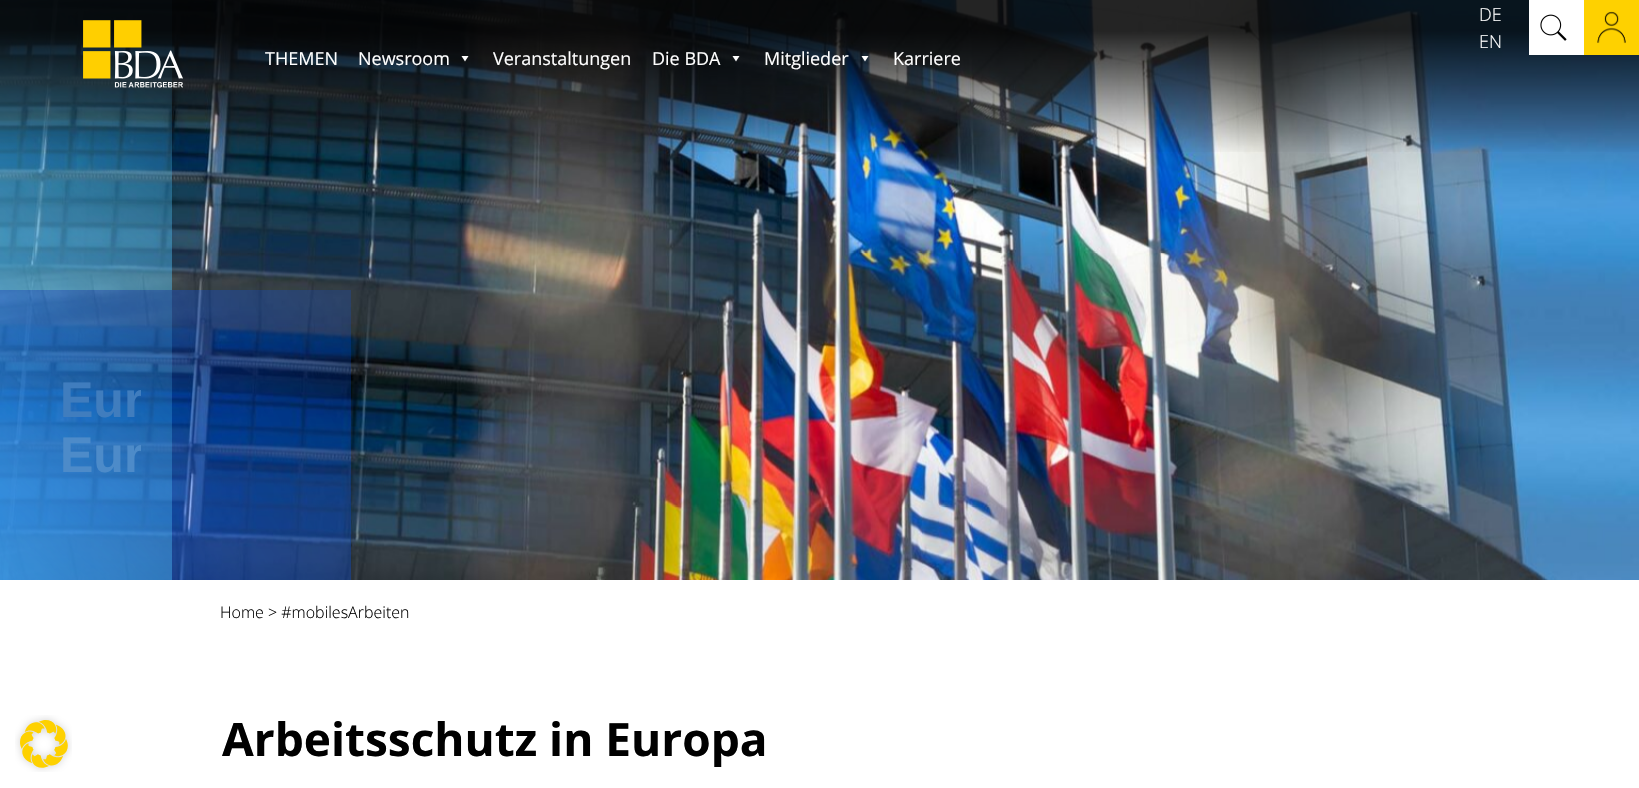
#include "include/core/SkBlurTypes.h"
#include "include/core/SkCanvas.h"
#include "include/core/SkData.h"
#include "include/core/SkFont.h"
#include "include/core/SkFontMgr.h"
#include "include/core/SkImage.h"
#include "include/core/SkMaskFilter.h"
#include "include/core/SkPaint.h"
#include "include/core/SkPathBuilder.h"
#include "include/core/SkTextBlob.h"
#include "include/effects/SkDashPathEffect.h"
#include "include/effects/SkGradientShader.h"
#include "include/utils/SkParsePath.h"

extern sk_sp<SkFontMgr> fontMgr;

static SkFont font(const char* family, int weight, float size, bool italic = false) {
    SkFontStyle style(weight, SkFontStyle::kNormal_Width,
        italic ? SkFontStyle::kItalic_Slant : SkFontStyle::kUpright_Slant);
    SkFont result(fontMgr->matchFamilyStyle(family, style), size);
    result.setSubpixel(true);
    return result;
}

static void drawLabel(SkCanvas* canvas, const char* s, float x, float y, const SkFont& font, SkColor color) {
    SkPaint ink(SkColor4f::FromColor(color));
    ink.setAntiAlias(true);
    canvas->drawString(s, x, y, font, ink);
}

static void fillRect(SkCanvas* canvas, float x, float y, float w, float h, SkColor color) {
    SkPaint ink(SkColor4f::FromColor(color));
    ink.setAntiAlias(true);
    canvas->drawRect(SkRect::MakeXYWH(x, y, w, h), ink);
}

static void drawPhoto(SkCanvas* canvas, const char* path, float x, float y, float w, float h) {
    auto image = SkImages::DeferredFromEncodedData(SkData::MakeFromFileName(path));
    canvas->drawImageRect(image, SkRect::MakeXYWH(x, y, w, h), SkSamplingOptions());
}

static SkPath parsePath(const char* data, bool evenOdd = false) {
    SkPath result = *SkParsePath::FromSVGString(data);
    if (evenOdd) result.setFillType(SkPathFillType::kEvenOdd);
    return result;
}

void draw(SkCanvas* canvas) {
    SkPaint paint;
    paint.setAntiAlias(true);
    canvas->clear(0xFFFFFFFF);
    drawPhoto(canvas, "assets/img1.png", 15, 715, 57, 57);
    drawPhoto(canvas, "assets/img5.png", 0, 0, 1639, 580);
    drawPhoto(canvas, "assets/img6.png", 0, 0, 172, 290);
    {
        const SkColor colors[] = {0x00000000, 0xDB000000};
        const float stops[] = {0, 0.8f};
        const SkPoint ends[] = {{820, 155}, {820, 0}};
        paint.setShader(SkGradientShader::MakeLinear(ends, colors, stops, 2, SkTileMode::kClamp));
        paint.setAlpha(255);
    }
    canvas->drawRect(SkRect::MakeXYWH(0, 0, 1639, 152), paint);
    SkFont font1 = font("Open Sans", 300, 18);
    drawLabel(canvas, "DE", 1479, 21, font1, 0xFFFFFFFF);
    drawLabel(canvas, "EN", 1479, 48, font1, 0xFFFFFFFF);
    fillRect(canvas, 1529, 0, 55, 55, 0xFFFFFFFF);
    drawPhoto(canvas, "assets/img2.png", 1540, 14, 27, 27);
    drawPhoto(canvas, "assets/img3.png", 1584, 0, 55, 55);
    drawPhoto(canvas, "assets/img4.png", 83, 20, 100, 68);
    SkFont font2 = font("Open Sans", 400, 18);
    drawLabel(canvas, "THEMEN", 265, 65, font2, 0xFFFFFFFF);
    drawLabel(canvas, "Newsroom", 358, 65, font2, 0xFFFFFFFF);
    paint.setShader(nullptr);
    paint.setColor(0xFFFFFFFF);
    canvas->drawPath(parsePath("M468.5 56L465 61.5L461.5 56Z"), paint);
    drawLabel(canvas, "Veranstaltungen", 493, 65, font2, 0xFFFFFFFF);
    drawLabel(canvas, "Die BDA", 652, 65, font2, 0xFFFFFFFF);
    canvas->drawPath(parsePath("M739.5 56L736 61.5L732.5 56Z"), paint);
    drawLabel(canvas, "Mitglieder", 764, 65, font2, 0xFFFFFFFF);
    canvas->drawPath(parsePath("M868.5 56L865 61.5L861.5 56Z"), paint);
    drawLabel(canvas, "Karriere", 893, 65, font2, 0xFFFFFFFF);
    drawPhoto(canvas, "assets/img7.png", 0, 290, 351, 290);
    drawPhoto(canvas, "assets/img8.png", 0, 290, 172, 290);
    canvas->save();
    canvas->clipPath(parsePath("M60 373H141V573H60Z"), true);
    SkFont font3 = font("Liberation Sans", 700, 50);
    drawLabel(canvas, "Eur", 60, 417, font3, 0xFF407DBE);
    drawLabel(canvas, "Eur", 60, 472, font3, 0xFF4D8BC9);
    canvas->restore();
    SkFont font4 = font("Open Sans", 300, 16);
    drawLabel(canvas, "Home > #mobilesArbeiten", 220, 618, font4, 0xFF000000);
    SkFont font5 = font("Open Sans", 700, 46);
    drawLabel(canvas, "Arbeitsschutz in Europa", 222, 756, font5, 0xFF000000);
}
